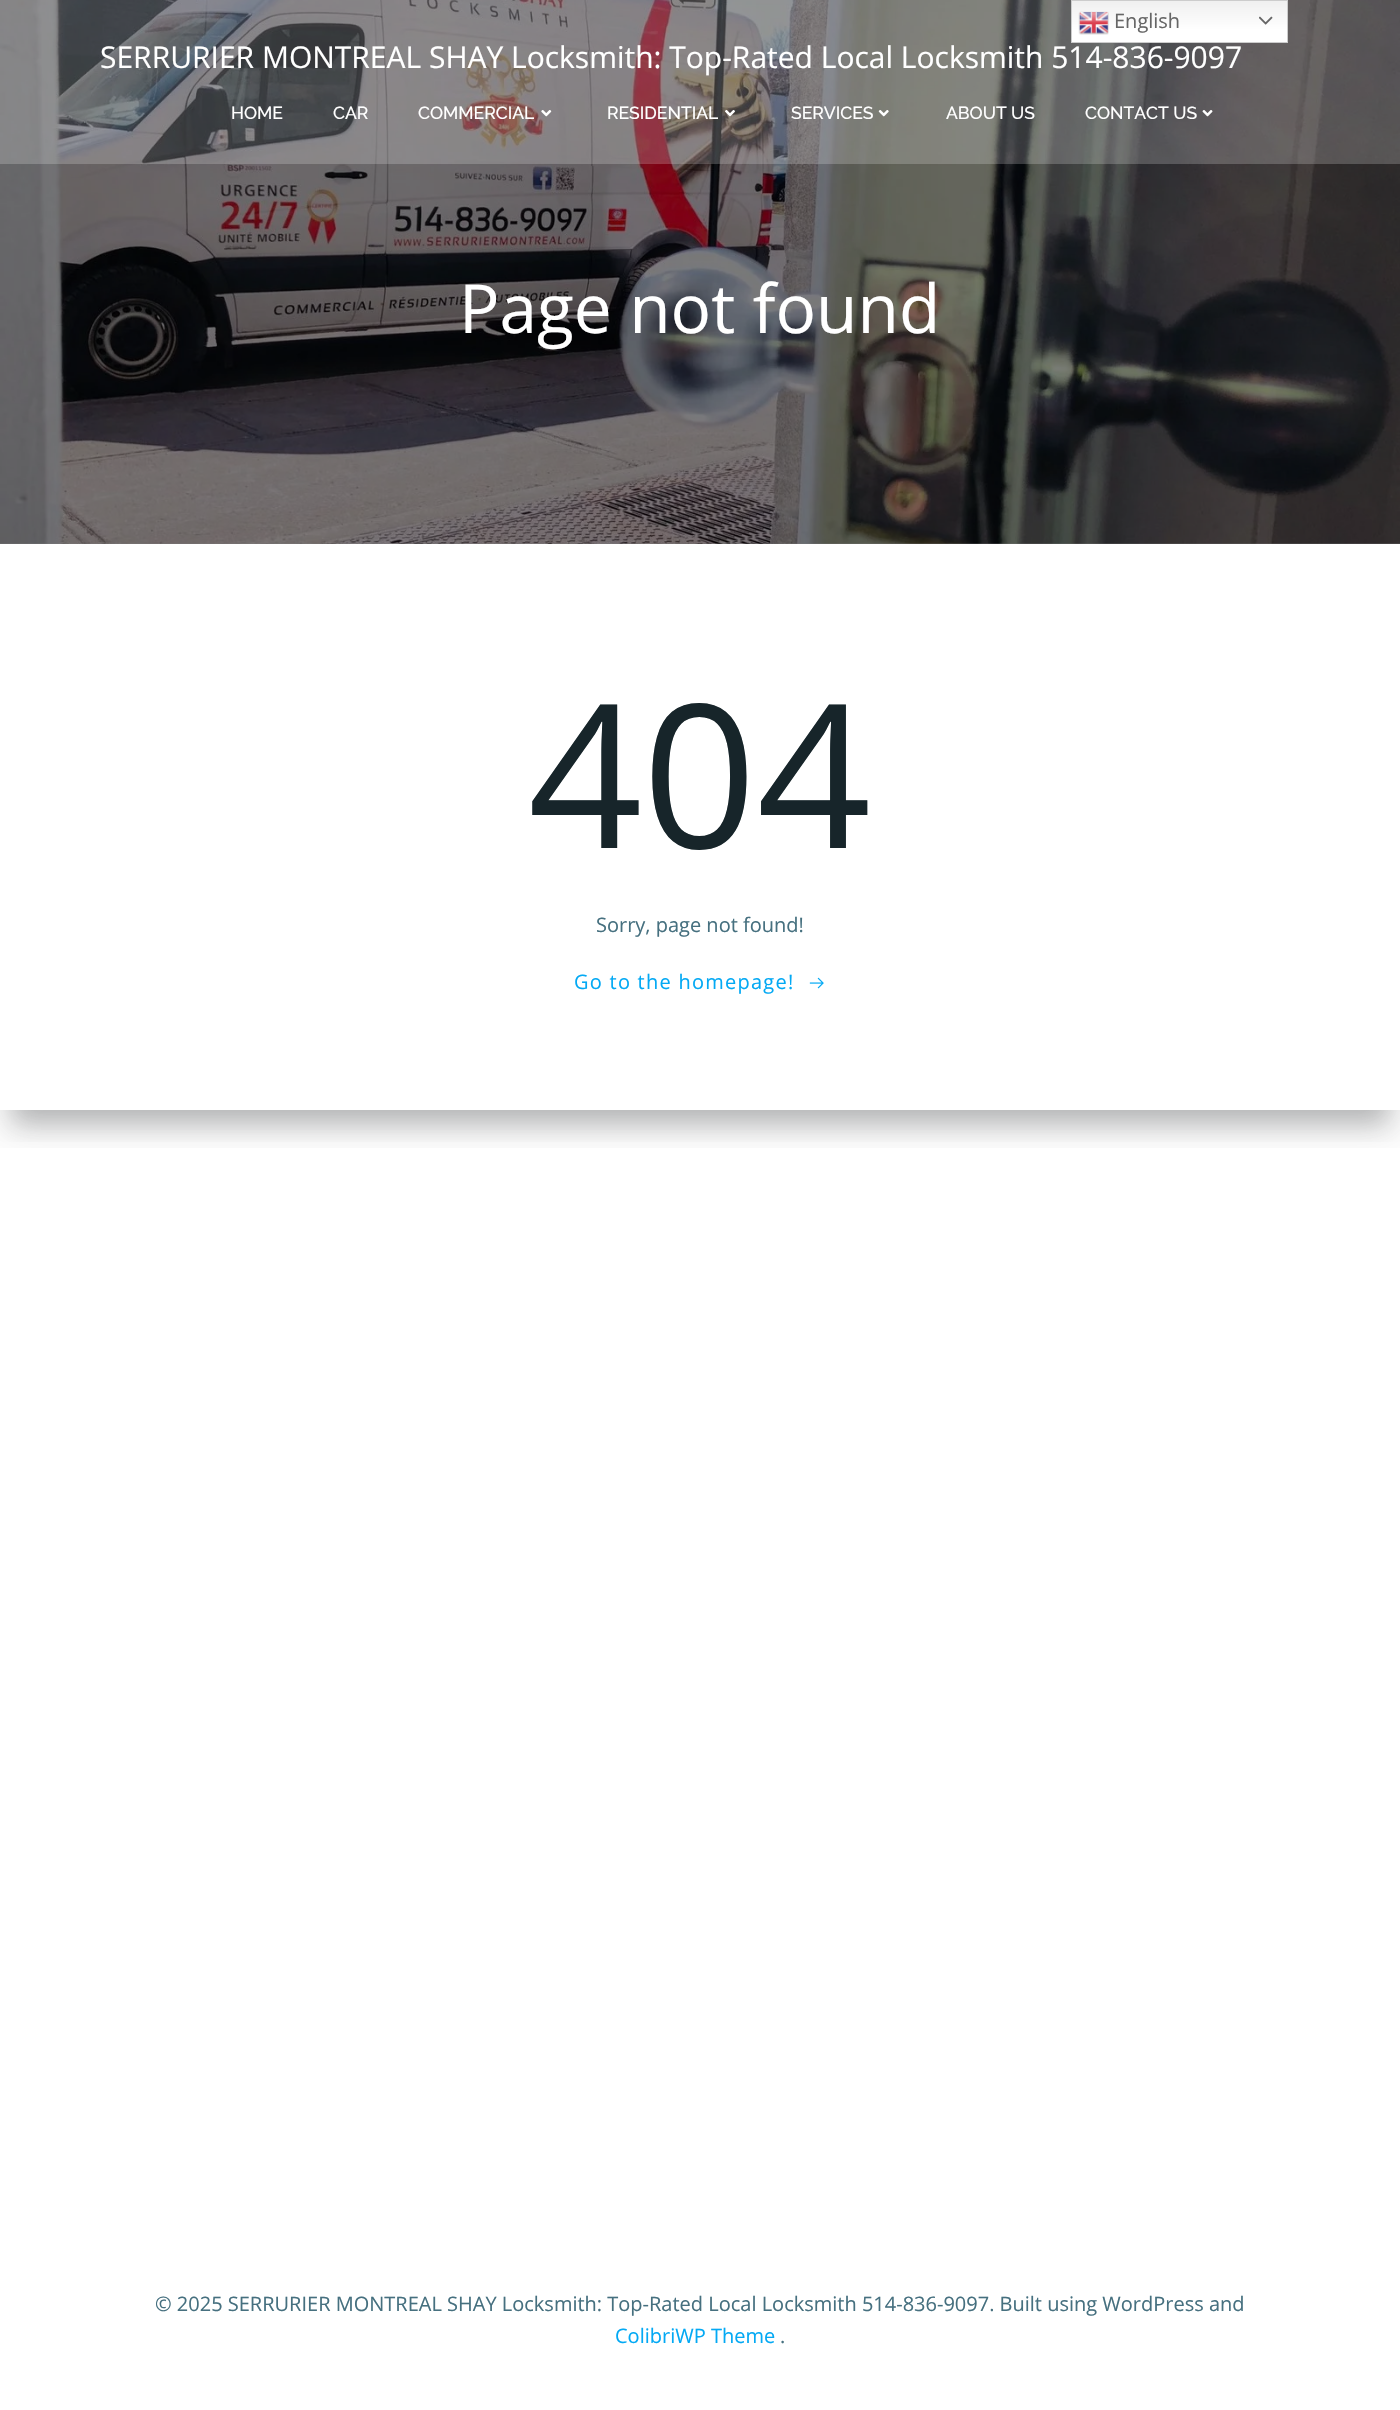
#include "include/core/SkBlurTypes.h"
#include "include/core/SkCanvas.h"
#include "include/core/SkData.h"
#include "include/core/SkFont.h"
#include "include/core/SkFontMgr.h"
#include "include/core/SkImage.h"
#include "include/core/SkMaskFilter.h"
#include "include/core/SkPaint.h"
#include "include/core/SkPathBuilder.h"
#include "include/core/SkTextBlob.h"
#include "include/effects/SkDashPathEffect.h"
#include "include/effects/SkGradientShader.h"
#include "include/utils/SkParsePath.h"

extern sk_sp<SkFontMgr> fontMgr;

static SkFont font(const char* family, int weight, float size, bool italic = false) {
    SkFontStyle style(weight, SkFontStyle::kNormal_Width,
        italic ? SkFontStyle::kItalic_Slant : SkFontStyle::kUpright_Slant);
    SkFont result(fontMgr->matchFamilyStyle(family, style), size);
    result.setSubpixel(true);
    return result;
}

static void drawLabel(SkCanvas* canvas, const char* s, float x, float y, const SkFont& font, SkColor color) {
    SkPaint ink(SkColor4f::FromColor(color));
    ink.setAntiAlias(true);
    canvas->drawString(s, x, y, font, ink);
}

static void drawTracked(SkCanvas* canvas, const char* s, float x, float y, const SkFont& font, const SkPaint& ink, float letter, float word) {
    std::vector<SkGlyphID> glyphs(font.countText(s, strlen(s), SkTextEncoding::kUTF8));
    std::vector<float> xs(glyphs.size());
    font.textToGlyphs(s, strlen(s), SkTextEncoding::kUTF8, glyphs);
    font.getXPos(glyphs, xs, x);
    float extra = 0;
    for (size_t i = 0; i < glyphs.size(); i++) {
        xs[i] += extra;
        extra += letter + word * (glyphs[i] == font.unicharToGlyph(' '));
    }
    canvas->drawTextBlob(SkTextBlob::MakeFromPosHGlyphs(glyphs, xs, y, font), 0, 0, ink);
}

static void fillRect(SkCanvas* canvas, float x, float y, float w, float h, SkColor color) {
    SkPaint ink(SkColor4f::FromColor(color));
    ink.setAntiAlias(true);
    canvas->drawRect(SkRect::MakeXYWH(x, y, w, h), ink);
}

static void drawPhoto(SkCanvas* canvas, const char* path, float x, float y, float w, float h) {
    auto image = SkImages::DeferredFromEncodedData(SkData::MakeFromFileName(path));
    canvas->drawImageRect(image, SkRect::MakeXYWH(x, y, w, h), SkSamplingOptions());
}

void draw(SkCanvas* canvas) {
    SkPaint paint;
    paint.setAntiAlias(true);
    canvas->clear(0xFFFFFFFF);
    drawPhoto(canvas, "assets/img7.png", 0, 0, 1400, 544);
    canvas->save();
    canvas->clipRect(SkRect::MakeXYWH(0, 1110, 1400, 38));
    paint.setColor(0x14000000);
    paint.setMaskFilter(SkMaskFilter::MakeBlur(kNormal_SkBlurStyle, 19));
    canvas->drawRect(SkRect::MakeXYWH(0, 569, 1400, 566), paint);
    paint.setMaskFilter(nullptr);
    canvas->restore();
    canvas->save();
    canvas->clipRect(SkRect::MakeXYWH(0, 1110, 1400, 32));
    paint.setColor(0x4D313439);
    paint.setMaskFilter(SkMaskFilter::MakeBlur(kNormal_SkBlurStyle, 12.5f));
    canvas->drawRect(SkRect::MakeXYWH(13, 581, 1375, 542), paint);
    paint.setMaskFilter(nullptr);
    canvas->restore();
    fillRect(canvas, 0, 0, 1400, 544, 0x80000000);
    fillRect(canvas, 0, 0, 1400, 164, 0x33FFFFFF);
    {
        const SkColor colors[] = {0xFFEFEFEF, 0xFFFFFFFF};
        const float stops[] = {0, 0.7f};
        const SkPoint ends[] = {{1179, 0}, {1179, 43}};
        paint.setShader(SkGradientShader::MakeLinear(ends, colors, stops, 2, SkTileMode::kClamp));
        paint.setAlpha(255);
    }
    canvas->drawRect(SkRect::MakeXYWH(1072, 1, 215, 41), paint);
    paint.setStroke(true);
    paint.setStrokeWidth(1);
    paint.setShader(nullptr);
    paint.setColor(0xFFCCCCCC);
    canvas->drawRect(SkRect::MakeXYWH(1071.5f, 0.5f, 216, 42), paint);
    drawPhoto(canvas, "assets/img1.png", 1078, 11, 31, 24);
    SkFont font1 = font("Open Sans", 400, 20);
    drawLabel(canvas, "English", 1114, 28, font1, 0xFF666666);
    drawPhoto(canvas, "assets/img2.png", 1259, 16, 14, 9);
    SkFont font2 = font("Open Sans", 400, 30);
    drawLabel(canvas, "SERRURIER MONTREAL SHAY Locksmith: Top-Rated Local Locksmith 514-836-9097", 100, 68, font2, 0xFFFFFFFF);
    SkFont font3 = font("Raleway", 500, 17.5f);
    drawLabel(canvas, "HOME", 231, 119, font3, 0xFFFFFFFF);
    drawLabel(canvas, "CAR", 333, 119, font3, 0xFFFFFFFF);
    drawLabel(canvas, "COMMERCIAL", 418, 119, font3, 0xFFFFFFFF);
    drawPhoto(canvas, "assets/img3.png", 541, 110, 11, 7);
    drawLabel(canvas, "RESIDENTIAL", 607, 119, font3, 0xFFFFFFFF);
    drawPhoto(canvas, "assets/img4.png", 725, 109, 10, 8);
    drawLabel(canvas, "SERVICES", 791, 119, font3, 0xFFFFFFFF);
    drawPhoto(canvas, "assets/img5.png", 878, 110, 11, 7);
    drawLabel(canvas, "ABOUT US", 946, 119, font3, 0xFFFFFFFF);
    drawLabel(canvas, "CONTACT US", 1085, 119, font3, 0xFFFFFFFF);
    drawPhoto(canvas, "assets/img6.png", 1202, 110, 11, 7);
    SkFont font4 = font("Open Sans", 400, 67.5f);
    drawLabel(canvas, "Page not found", 459, 333, font4, 0xFFFFFFFF);
    SkFont font5 = font("Open Sans", 400, 200);
    drawLabel(canvas, "404", 528, 848, font5, 0xFF17252A);
    drawLabel(canvas, "Sorry, page not found!", 596, 932, font1, 0xFF46707F);
    paint.setStroke(false);
    paint.setColor(0xFF03A9F4);
    drawTracked(canvas, "Go to the homepage!", 574, 989, font1, paint, 1.25f, 0);
    drawPhoto(canvas, "assets/img8.png", 809, 977, 15, 12);
    drawLabel(canvas, "© 2025 SERRURIER MONTREAL SHAY Locksmith: Top-Rated Local Locksmith 514-836-9097. Built using WordPress and", 155, 2311, font1, 0xFF46707F);
    drawLabel(canvas, "ColibriWP Theme", 615, 2343, font1, 0xFF03A9F4);
    drawLabel(canvas, ".", 780, 2343, font1, 0xFF46707F);
}
